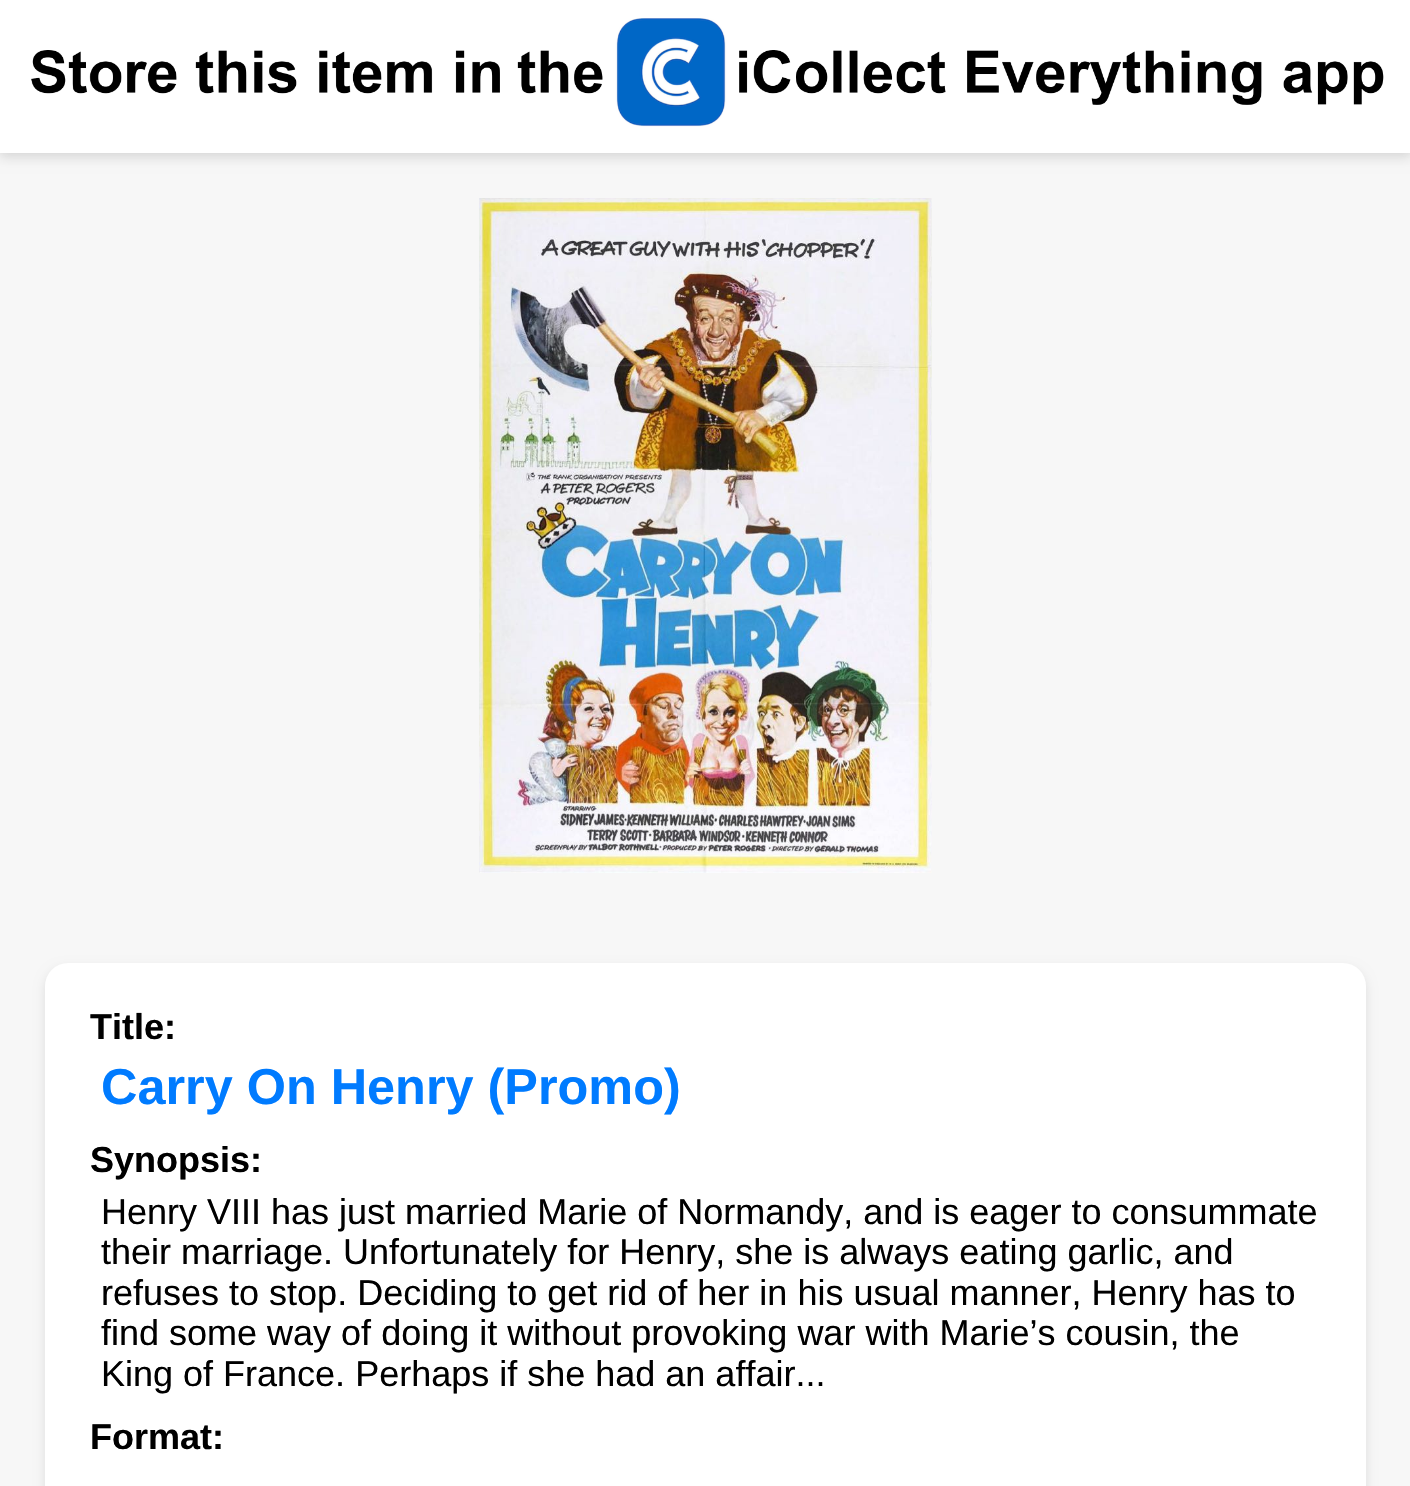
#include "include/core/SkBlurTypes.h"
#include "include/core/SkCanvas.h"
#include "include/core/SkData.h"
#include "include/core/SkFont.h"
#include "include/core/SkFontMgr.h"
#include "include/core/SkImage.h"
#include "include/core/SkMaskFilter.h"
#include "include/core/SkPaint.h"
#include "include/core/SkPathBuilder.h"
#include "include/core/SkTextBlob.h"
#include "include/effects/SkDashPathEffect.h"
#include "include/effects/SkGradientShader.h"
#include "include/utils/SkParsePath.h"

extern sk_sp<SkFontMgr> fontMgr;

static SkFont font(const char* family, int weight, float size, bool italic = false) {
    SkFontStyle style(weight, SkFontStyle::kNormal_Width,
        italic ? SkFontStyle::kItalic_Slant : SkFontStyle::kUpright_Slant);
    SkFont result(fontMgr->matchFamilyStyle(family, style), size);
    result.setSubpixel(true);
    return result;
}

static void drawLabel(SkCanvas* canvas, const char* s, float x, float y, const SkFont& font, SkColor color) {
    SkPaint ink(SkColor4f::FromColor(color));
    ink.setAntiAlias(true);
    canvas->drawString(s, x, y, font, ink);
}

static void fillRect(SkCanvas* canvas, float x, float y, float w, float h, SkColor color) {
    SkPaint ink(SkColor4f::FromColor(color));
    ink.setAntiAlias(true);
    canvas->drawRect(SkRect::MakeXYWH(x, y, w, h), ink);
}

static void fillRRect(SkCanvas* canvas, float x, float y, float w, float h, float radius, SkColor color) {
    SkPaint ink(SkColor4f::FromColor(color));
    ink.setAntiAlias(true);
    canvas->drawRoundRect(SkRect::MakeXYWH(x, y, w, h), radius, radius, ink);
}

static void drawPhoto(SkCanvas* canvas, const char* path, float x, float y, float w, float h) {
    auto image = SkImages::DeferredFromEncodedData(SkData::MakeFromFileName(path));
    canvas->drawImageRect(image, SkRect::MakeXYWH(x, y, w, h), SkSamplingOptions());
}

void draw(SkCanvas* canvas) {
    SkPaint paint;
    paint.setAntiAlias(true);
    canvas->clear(0xFFF7F7F7);
    paint.setColor(0x1A000000);
    paint.setMaskFilter(SkMaskFilter::MakeBlur(kNormal_SkBlurStyle, 5.5f));
    canvas->drawRect(SkRect::MakeXYWH(0, 5, 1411, 153), paint);
    paint.setMaskFilter(nullptr);
    paint.setMaskFilter(SkMaskFilter::MakeBlur(kNormal_SkBlurStyle, 5.5f));
    canvas->drawRect(SkRect::MakeXYWH(0, -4, 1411, 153), paint);
    paint.setMaskFilter(nullptr);
    fillRect(canvas, 0, 0, 1410, 153, 0xFFFFFFFF);
    drawPhoto(canvas, "assets/img1.png", 31, 18, 1353, 109);
    drawPhoto(canvas, "assets/img2.png", 479, 198, 453, 675);
    paint.setMaskFilter(SkMaskFilter::MakeBlur(kNormal_SkBlurStyle, 5.5f));
    canvas->drawRoundRect(SkRect::MakeXYWH(45, 968, 1321, 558), 23, 23, paint);
    paint.setMaskFilter(nullptr);
    fillRRect(canvas, 45, 963, 1321, 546, 23, 0xFFFFFFFF);
    SkFont font1 = font("Liberation Sans", 700, 36);
    drawLabel(canvas, "Title:", 90, 1039, font1, 0xFF000000);
    SkFont font2 = font("Liberation Sans", 700, 50.4f);
    drawLabel(canvas, "Carry On Henry (Promo)", 101, 1104, font2, 0xFF007BFF);
    drawLabel(canvas, "Synopsis:", 90, 1172, font1, 0xFF000000);
    SkFont font3 = font("Liberation Sans", 400, 36);
    drawLabel(canvas, "Henry VIII has just married Marie of Normandy, and is eager to consummate", 101, 1224, font3, 0xFF000000);
    drawLabel(canvas, "their marriage. Unfortunately for Henry, she is always eating garlic, and", 101, 1264, font3, 0xFF000000);
    drawLabel(canvas, "refuses to stop. Deciding to get rid of her in his usual manner, Henry has to", 101, 1305, font3, 0xFF000000);
    drawLabel(canvas, "find some way of doing it without provoking war with Marie’s cousin, the", 101, 1345, font3, 0xFF000000);
    drawLabel(canvas, "King of France. Perhaps if she had an affair...", 101, 1386, font3, 0xFF000000);
    drawLabel(canvas, "Format:", 90, 1449, font1, 0xFF000000);
}
